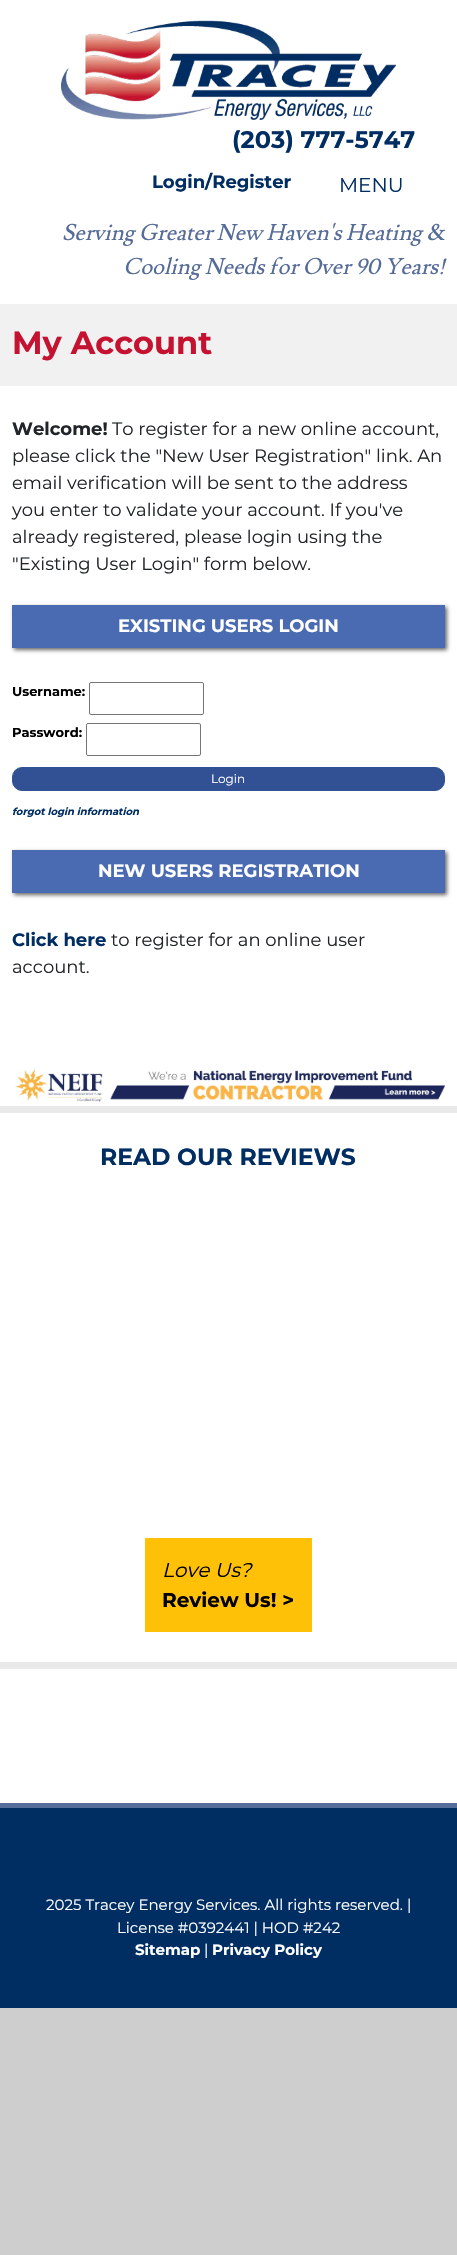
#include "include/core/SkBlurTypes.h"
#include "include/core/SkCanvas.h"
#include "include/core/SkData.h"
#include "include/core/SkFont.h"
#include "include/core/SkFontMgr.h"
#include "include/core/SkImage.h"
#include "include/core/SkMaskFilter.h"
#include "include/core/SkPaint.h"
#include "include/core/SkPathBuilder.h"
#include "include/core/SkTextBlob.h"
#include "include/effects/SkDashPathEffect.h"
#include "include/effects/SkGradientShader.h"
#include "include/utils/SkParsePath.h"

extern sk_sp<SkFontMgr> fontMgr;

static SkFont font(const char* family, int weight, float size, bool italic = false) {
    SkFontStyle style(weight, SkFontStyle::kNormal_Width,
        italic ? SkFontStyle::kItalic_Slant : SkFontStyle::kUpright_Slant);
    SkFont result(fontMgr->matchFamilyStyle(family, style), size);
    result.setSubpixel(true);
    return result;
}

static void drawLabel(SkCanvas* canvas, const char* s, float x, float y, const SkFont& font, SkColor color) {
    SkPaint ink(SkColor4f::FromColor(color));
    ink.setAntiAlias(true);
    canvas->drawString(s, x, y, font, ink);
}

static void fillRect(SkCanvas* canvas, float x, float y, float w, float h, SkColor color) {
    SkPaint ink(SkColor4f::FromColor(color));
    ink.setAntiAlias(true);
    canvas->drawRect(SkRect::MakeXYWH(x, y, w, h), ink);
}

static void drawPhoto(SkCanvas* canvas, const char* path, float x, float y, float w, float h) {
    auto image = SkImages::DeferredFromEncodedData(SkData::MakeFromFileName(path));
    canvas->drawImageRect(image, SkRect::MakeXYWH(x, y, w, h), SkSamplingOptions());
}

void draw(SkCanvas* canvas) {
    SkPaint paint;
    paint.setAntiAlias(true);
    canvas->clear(0xFFCECECE);
    fillRect(canvas, 0, 0, 457, 304, 0xFFFFFFFF);
    drawPhoto(canvas, "assets/img1.png", 61, 20, 335, 100);
    SkFont font1 = font("Montserrat", 700, 24);
    drawLabel(canvas, "(203) 777-5747", 232, 148, font1, 0xFF002D62);
    SkFont font2 = font("Montserrat", 700, 18);
    drawLabel(canvas, "Login/Register", 152, 188, font2, 0xFF002D62);
    SkFont font3 = font("Montserrat", 400, 20);
    drawLabel(canvas, "MENU", 339, 192, font3, 0xFF002D62);
    SkFont font4 = font("Lusitana", 400, 22.5f, true);
    drawLabel(canvas, "Serving Greater New Haven's Heating &", 62, 240, font4, 0xFF556B98);
    drawLabel(canvas, "Cooling Needs for Over 90 Years!", 123, 274, font4, 0xFF556B98);
    fillRect(canvas, 0, 304, 457, 82, 0xFFF1F1F1);
    SkFont font5 = font("Montserrat", 700, 32);
    drawLabel(canvas, "My Account", 12, 354, font5, 0xFFC41230);
    fillRect(canvas, 0, 386, 457, 720, 0xFFFFFFFF);
    drawLabel(canvas, "Welcome!", 12, 435, font2, 0xFF212529);
    SkFont font6 = font("Montserrat", 400, 18);
    drawLabel(canvas, "To register for a new online account,", 112, 435, font6, 0xFF212529);
    drawLabel(canvas, "please click the \"New User Registration\" link. An", 12, 462, font6, 0xFF212529);
    drawLabel(canvas, "email verification will be sent to the address", 12, 489, font6, 0xFF212529);
    drawLabel(canvas, "you enter to validate your account. If you've", 12, 516, font6, 0xFF212529);
    drawLabel(canvas, "already registered, please login using the", 12, 543, font6, 0xFF212529);
    drawLabel(canvas, "\"Existing User Login\" form below.", 12, 570, font6, 0xFF212529);
    paint.setColor(0xFF666666);
    paint.setMaskFilter(SkMaskFilter::MakeBlur(kNormal_SkBlurStyle, 2));
    canvas->drawRect(SkRect::MakeXYWH(14, 607, 433, 43), paint);
    paint.setMaskFilter(nullptr);
    fillRect(canvas, 12, 605, 433, 43, 0xFF4A6BB2);
    drawLabel(canvas, "EXISTING USERS LOGIN", 118, 632, font2, 0xFFFFFFFF);
    SkFont font7 = font("Montserrat", 700, 13);
    drawLabel(canvas, "Username:", 12, 696, font7, 0xFF000000);
    paint.setStroke(true);
    paint.setStrokeWidth(1);
    paint.setColor(0xFF767676);
    canvas->drawRoundRect(SkRect::MakeXYWH(89.5f, 682.5f, 114, 32), 1.5f, 1.5f, paint);
    drawLabel(canvas, "Password:", 12, 737, font7, 0xFF000000);
    canvas->drawRoundRect(SkRect::MakeXYWH(86.5f, 723.5f, 114, 32), 1.5f, 1.5f, paint);
    paint.setStroke(false);
    paint.setColor(0xFF325194);
    canvas->drawRoundRect(SkRect::MakeXYWH(12.5f, 767.5f, 432, 23), 9.5f, 9.5f, paint);
    paint.setStroke(true);
    canvas->drawRoundRect(SkRect::MakeXYWH(12.5f, 767.5f, 432, 23), 9.5f, 9.5f, paint);
    SkFont font8 = font("Montserrat", 400, 12);
    drawLabel(canvas, "Login", 211, 783, font8, 0xFFFFFFFF);
    SkFont font9 = font("Montserrat", 700, 10, true);
    drawLabel(canvas, "forgot login information", 12, 815, font9, 0xFF002D62);
    paint.setStroke(false);
    paint.setColor(0xFF666666);
    paint.setMaskFilter(SkMaskFilter::MakeBlur(kNormal_SkBlurStyle, 2));
    canvas->drawRect(SkRect::MakeXYWH(14, 852, 433, 43), paint);
    paint.setMaskFilter(nullptr);
    fillRect(canvas, 12, 850, 433, 43, 0xFF4A6BB2);
    drawLabel(canvas, "NEW USERS REGISTRATION", 98, 877, font2, 0xFFFFFFFF);
    drawLabel(canvas, "Click here", 12, 946, font2, 0xFF002D62);
    drawLabel(canvas, "to register for an online user", 111, 946, font6, 0xFF212529);
    drawLabel(canvas, "account.", 12, 973, font6, 0xFF212529);
    drawPhoto(canvas, "assets/img2.png", 15, 1069, 430, 33);
    fillRect(canvas, 0, 1113, 457, 549, 0xFFFFFFFF);
    fillRect(canvas, 0, 1106, 457, 7, 0xFFE9E9E9);
    SkFont font10 = font("Montserrat", 700, 23.5f);
    drawLabel(canvas, "READ OUR REVIEWS", 100, 1165, font10, 0xFF002D62);
    fillRect(canvas, 145, 1538, 167, 94, 0xFFFFC107);
    SkFont font11 = font("Montserrat", 400, 20, true);
    drawLabel(canvas, "Love Us?", 162, 1577, font11, 0xFF000000);
    SkFont font12 = font("Montserrat", 700, 20);
    drawLabel(canvas, "Review Us! >", 162, 1607, font12, 0xFF000000);
    fillRect(canvas, 0, 1669, 457, 134, 0xFFFFFFFF);
    fillRect(canvas, 0, 1662, 457, 7, 0xFFE9E9E9);
    fillRect(canvas, 0, 1808, 457, 200, 0xFF002D62);
    fillRect(canvas, 0, 1803, 457, 5, 0xFF556B98);
    SkFont font13 = font("Montserrat", 400, 15);
    drawLabel(canvas, "2025 Tracey Energy Services. All rights reserved. |", 46, 1910, font13, 0xFFFFFFFF);
    drawLabel(canvas, "License #0392441 | HOD #242", 117, 1933, font13, 0xFFFFFFFF);
    SkFont font14 = font("Montserrat", 700, 15);
    drawLabel(canvas, "Sitemap", 135, 1955, font14, 0xFFFFFFFF);
    drawLabel(canvas, "|", 204, 1955, font13, 0xFFFFFFFF);
    drawLabel(canvas, "Privacy Policy", 212, 1955, font14, 0xFFFFFFFF);
}
